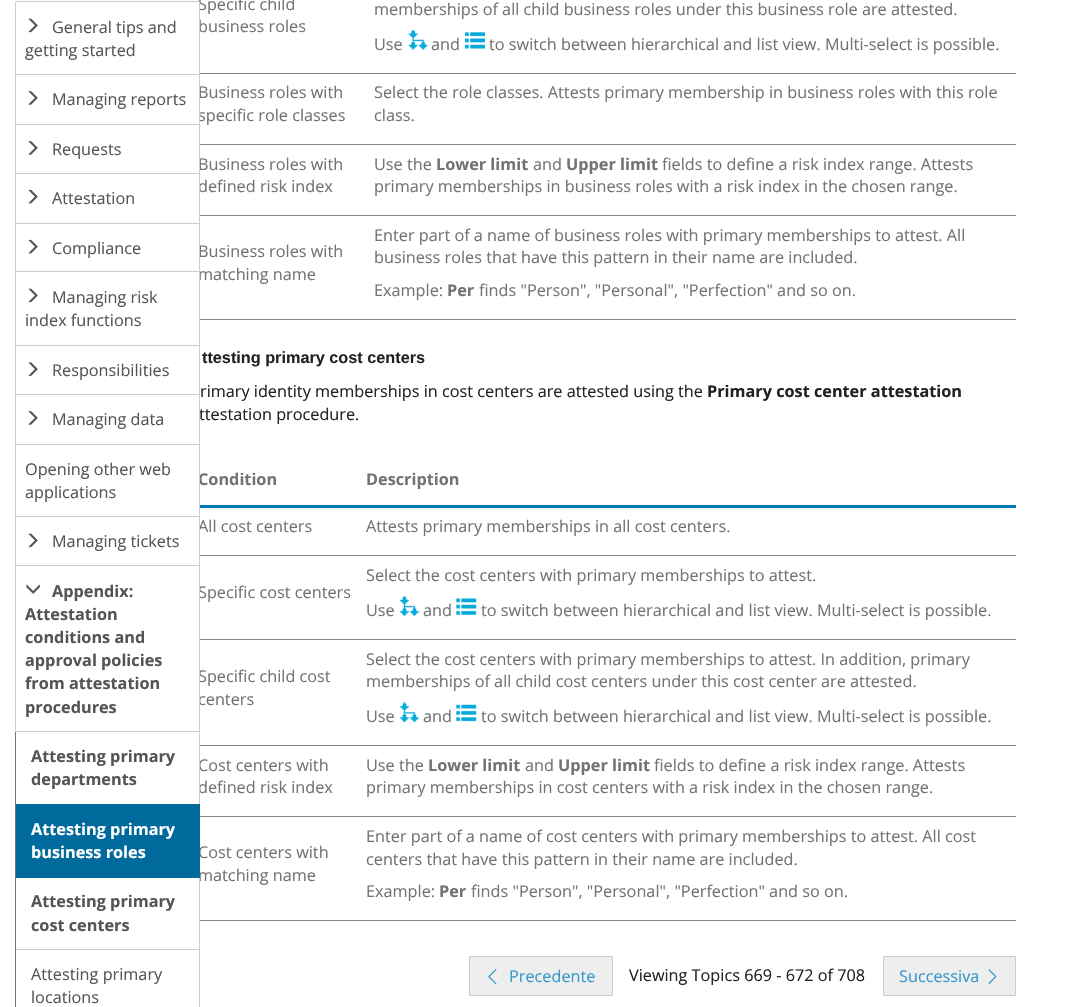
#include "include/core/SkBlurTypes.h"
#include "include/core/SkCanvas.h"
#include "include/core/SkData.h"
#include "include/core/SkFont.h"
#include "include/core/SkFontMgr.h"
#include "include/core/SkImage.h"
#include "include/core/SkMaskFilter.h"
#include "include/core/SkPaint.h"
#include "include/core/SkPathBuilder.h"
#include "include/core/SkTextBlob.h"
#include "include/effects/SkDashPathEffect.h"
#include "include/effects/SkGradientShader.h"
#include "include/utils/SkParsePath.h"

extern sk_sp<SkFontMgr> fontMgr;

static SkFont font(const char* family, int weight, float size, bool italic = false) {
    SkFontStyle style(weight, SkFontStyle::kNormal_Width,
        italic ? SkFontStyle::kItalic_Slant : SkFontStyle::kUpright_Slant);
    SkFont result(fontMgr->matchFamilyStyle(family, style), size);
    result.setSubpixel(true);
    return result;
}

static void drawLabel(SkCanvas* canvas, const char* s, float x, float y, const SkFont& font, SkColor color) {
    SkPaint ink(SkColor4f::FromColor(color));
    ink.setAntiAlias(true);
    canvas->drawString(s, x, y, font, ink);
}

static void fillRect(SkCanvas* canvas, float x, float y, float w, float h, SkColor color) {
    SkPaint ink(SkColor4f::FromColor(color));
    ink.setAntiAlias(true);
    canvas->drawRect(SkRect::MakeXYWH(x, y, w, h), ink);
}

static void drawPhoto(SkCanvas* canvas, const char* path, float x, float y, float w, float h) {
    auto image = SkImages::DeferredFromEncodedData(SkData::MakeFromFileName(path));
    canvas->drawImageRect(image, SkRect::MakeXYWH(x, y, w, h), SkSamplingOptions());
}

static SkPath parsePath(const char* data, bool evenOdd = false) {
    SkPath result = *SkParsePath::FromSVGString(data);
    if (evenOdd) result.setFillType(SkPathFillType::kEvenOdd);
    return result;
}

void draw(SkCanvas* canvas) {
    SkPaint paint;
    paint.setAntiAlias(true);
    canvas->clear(0xFFFFFFFF);
    SkFont font1 = font("Open Sans", 400, 16.25f);
    drawLabel(canvas, "Specific child", 198, 10, font1, 0xFF737373);
    drawLabel(canvas, "business roles", 198, 32, font1, 0xFF737373);
    paint.setColor(0xFFFFFFFF);
    canvas->drawPath(parsePath("M16 1.5H199C199.5 1.5 199.5 1.5 199.5 2V74.5H15.5V2C15.5 1.5 15.5 1.5 16 1.5Z"), paint);
    paint.setStroke(true);
    paint.setStrokeWidth(1);
    paint.setColor(0xFFCCCCCC);
    canvas->drawPath(parsePath("M16 1.5H199C199.5 1.5 199.5 1.5 199.5 2V74.5H15.5V2C15.5 1.5 15.5 1.5 16 1.5Z"), paint);
    drawPhoto(canvas, "assets/img1.png", 28, 18, 10, 15);
    drawLabel(canvas, "General tips and", 52, 33, font1, 0xFF555555);
    drawLabel(canvas, "getting started", 25, 56, font1, 0xFF555555);
    drawLabel(canvas, "specific role classes", 198, 121, font1, 0xFF737373);
    fillRect(canvas, 198, 113, 1, 8, 0xFFFFFFFF);
    drawLabel(canvas, "Business roles with", 198, 98, font1, 0xFF737373);
    canvas->drawRect(SkRect::MakeXYWH(15.5f, 74.5f, 184, 50), paint);
    drawPhoto(canvas, "assets/img2.png", 28, 91, 10, 14);
    drawLabel(canvas, "Managing reports", 52, 105, font1, 0xFF555555);
    drawLabel(canvas, "Business roles with", 198, 170, font1, 0xFF737373);
    canvas->drawRect(SkRect::MakeXYWH(15.5f, 124.5f, 184, 49), paint);
    drawPhoto(canvas, "assets/img2.png", 28, 141, 10, 14);
    drawLabel(canvas, "Requests", 52, 155, font1, 0xFF555555);
    drawLabel(canvas, "defined risk index", 198, 192, font1, 0xFF737373);
    fillRect(canvas, 198, 185, 1, 5, 0xFFFFFFFF);
    canvas->drawRect(SkRect::MakeXYWH(15.5f, 173.5f, 184, 50), paint);
    drawPhoto(canvas, "assets/img3.png", 28, 189, 10, 15);
    drawLabel(canvas, "Attestation", 52, 204, font1, 0xFF555555);
    drawLabel(canvas, "Business roles with", 198, 257, font1, 0xFF737373);
    drawLabel(canvas, "matching name", 198, 280, font1, 0xFF737373);
    canvas->drawRect(SkRect::MakeXYWH(15.5f, 223.5f, 184, 49), paint);
    drawPhoto(canvas, "assets/img3.png", 28, 239, 10, 15);
    drawLabel(canvas, "Compliance", 52, 254, font1, 0xFF555555);
    fillRect(canvas, 16, 272, 183, 1, 0xFFFFFFFF);
    canvas->drawRect(SkRect::MakeXYWH(15.5f, 271.5f, 184, 74), paint);
    drawPhoto(canvas, "assets/img1.png", 28, 288, 10, 15);
    drawLabel(canvas, "Managing risk", 52, 303, font1, 0xFF555555);
    drawLabel(canvas, "index functions", 25, 326, font1, 0xFF555555);
    canvas->drawRect(SkRect::MakeXYWH(15.5f, 345.5f, 184, 49), paint);
    drawPhoto(canvas, "assets/img4.png", 28, 362, 10, 14);
    drawLabel(canvas, "Responsibilities", 52, 376, font1, 0xFF555555);
    drawLabel(canvas, "ttestation procedure.", 199, 420, font1, 0xFF222222);
    canvas->drawRect(SkRect::MakeXYWH(15.5f, 394.5f, 184, 50), paint);
    drawPhoto(canvas, "assets/img2.png", 28, 411, 10, 14);
    drawLabel(canvas, "Managing data", 52, 425, font1, 0xFF555555);
    SkFont font2 = font("Open Sans", 700, 16.25f);
    drawLabel(canvas, "Condition", 198, 485, font2, 0xFF737373);
    fillRect(canvas, 198, 477, 1, 5, 0xFFFFFFFF);
    canvas->drawRect(SkRect::MakeXYWH(15.5f, 444.5f, 184, 73), paint);
    drawLabel(canvas, "Opening other web", 25, 475, font1, 0xFF555555);
    drawLabel(canvas, "applications", 25, 498, font1, 0xFF555555);
    drawLabel(canvas, "All cost centers", 198, 532, font1, 0xFF737373);
    fillRect(canvas, 16, 517, 183, 15, 0xFFFFFFFF);
    canvas->drawRect(SkRect::MakeXYWH(15.5f, 516.5f, 184, 49), paint);
    drawPhoto(canvas, "assets/img1.png", 28, 533, 10, 15);
    drawLabel(canvas, "Managing tickets", 52, 547, font1, 0xFF555555);
    drawLabel(canvas, "Specific cost centers", 198, 598, font1, 0xFF737373);
    drawLabel(canvas, "Specific child cost", 198, 682, font1, 0xFF737373);
    drawLabel(canvas, "centers", 198, 705, font1, 0xFF737373);
    fillRect(canvas, 198, 588, 1, 115, 0xFFFFFFFF);
    canvas->drawRect(SkRect::MakeXYWH(15.5f, 565.5f, 184, 167), paint);
    drawPhoto(canvas, "assets/img5.png", 26, 584, 14, 10);
    drawLabel(canvas, "Appendix:", 52, 597, font2, 0xFF555555);
    drawLabel(canvas, "Attestation", 25, 620, font2, 0xFF555555);
    drawLabel(canvas, "conditions and", 25, 643, font2, 0xFF555555);
    drawLabel(canvas, "approval policies", 25, 666, font2, 0xFF555555);
    drawLabel(canvas, "from attestation", 25, 689, font2, 0xFF555555);
    drawLabel(canvas, "procedures", 25, 713, font2, 0xFF555555);
    drawLabel(canvas, "Cost centers with", 198, 771, font1, 0xFF737373);
    drawLabel(canvas, "defined risk index", 198, 793, font1, 0xFF737373);
    paint.setStroke(false);
    paint.setColor(0xFFFFFFFF);
    canvas->drawPath(parsePath("M16 731H199C199.5 731 200 731.5 200 732V805H15V732C15 731.5 15.5 731 16 731Z"), paint);
    paint.setColor(0xFFCCCCCC);
    canvas->drawPath(parsePath("M16 732H15L16 731H199L200 732H199Z"), paint);
    canvas->drawPath(parsePath("M200 805V732H199V804Z"), paint);
    paint.setColor(0xFF737373);
    canvas->drawPath(parsePath("M15 805L16 804V732H15Z"), paint);
    drawLabel(canvas, "Attesting primary", 31, 762, font2, 0xFF555555);
    drawLabel(canvas, "departments", 31, 785, font2, 0xFF555555);
    drawLabel(canvas, "matching name", 198, 881, font1, 0xFF737373);
    fillRect(canvas, 199, 876, 1, 74, 0xFFCCCCCC);
    drawLabel(canvas, "Cost centers with", 198, 858, font1, 0xFF737373);
    fillRect(canvas, 16, 804, 184, 74, 0xFF016A9C);
    drawLabel(canvas, "Attesting primary", 31, 835, font2, 0xFFFFFFFF);
    drawLabel(canvas, "business roles", 31, 858, font2, 0xFFFFFFFF);
    fillRect(canvas, 15, 804, 1, 146, 0xFF737373);
    drawLabel(canvas, "Attesting primary", 31, 907, font2, 0xFF555555);
    drawLabel(canvas, "cost centers", 31, 931, font2, 0xFF555555);
    fillRect(canvas, 15, 949, 185, 1, 0xFFCCCCCC);
    fillRect(canvas, 199, 949, 1, 58, 0xFFCCCCCC);
    fillRect(canvas, 15, 949, 1, 58, 0xFF737373);
    drawLabel(canvas, "Attesting primary", 31, 980, font1, 0xFF555555);
    drawLabel(canvas, "locations", 31, 1003, font1, 0xFF555555);
    fillRect(canvas, 200, 73, 816, 1, 0xFF848484);
    drawLabel(canvas, "memberships of all child business roles under this business role are attested.", 374, 15, font1, 0xFF737373);
    drawLabel(canvas, "Use", 374, 50, font1, 0xFF737373);
    drawPhoto(canvas, "assets/img6.png", 408, 29, 20, 21);
    drawLabel(canvas, "and", 431, 50, font1, 0xFF737373);
    drawPhoto(canvas, "assets/img7.png", 465, 32, 20, 17);
    drawLabel(canvas, "to switch between hierarchical and list view. Multi-select is possible.", 489, 50, font1, 0xFF737373);
    fillRect(canvas, 200, 144, 816, 1, 0xFF848484);
    drawLabel(canvas, "Select the role classes. Attests primary membership in business roles with this role", 374, 98, font1, 0xFF737373);
    drawLabel(canvas, "class.", 374, 121, font1, 0xFF737373);
    fillRect(canvas, 200, 215, 816, 1, 0xFF848484);
    drawLabel(canvas, "Use the", 374, 170, font1, 0xFF737373);
    drawLabel(canvas, "Lower limit", 436, 170, font2, 0xFF737373);
    drawLabel(canvas, "and", 533, 170, font1, 0xFF737373);
    drawLabel(canvas, "Upper limit", 566, 170, font2, 0xFF737373);
    drawLabel(canvas, "fields to define a risk index range. Attests", 662, 170, font1, 0xFF737373);
    drawLabel(canvas, "primary memberships in business roles with a risk index in the chosen range.", 374, 192, font1, 0xFF737373);
    fillRect(canvas, 200, 319, 816, 1, 0xFF848484);
    drawLabel(canvas, "Enter part of a name of business roles with primary memberships to attest. All", 374, 241, font1, 0xFF737373);
    drawLabel(canvas, "business roles that have this pattern in their name are included.", 374, 263, font1, 0xFF737373);
    drawLabel(canvas, "Example:", 374, 296, font1, 0xFF737373);
    drawLabel(canvas, "Per", 447, 296, font2, 0xFF737373);
    drawLabel(canvas, "finds \"Person\", \"Personal\", \"Perfection\" and so on.", 479, 296, font1, 0xFF737373);
    SkFont font3 = font("Liberation Sans", 700, 16.25f);
    drawLabel(canvas, "ttesting primary cost centers", 202, 363, font3, 0xFF222222);
    drawLabel(canvas, "rimary identity memberships in cost centers are attested using the", 200, 397, font1, 0xFF222222);
    drawLabel(canvas, "Primary cost center attestation", 707, 397, font2, 0xFF222222);
    fillRect(canvas, 200, 505, 816, 3, 0xFF0078B6);
    drawLabel(canvas, "Description", 366, 485, font2, 0xFF737373);
    fillRect(canvas, 200, 555, 816, 1, 0xFF848484);
    drawLabel(canvas, "Attests primary memberships in all cost centers.", 366, 532, font1, 0xFF737373);
    fillRect(canvas, 200, 639, 816, 1, 0xFF848484);
    drawLabel(canvas, "Select the cost centers with primary memberships to attest.", 366, 581, font1, 0xFF737373);
    drawLabel(canvas, "Use", 366, 616, font1, 0xFF737373);
    drawPhoto(canvas, "assets/img8.png", 399, 596, 20, 20);
    drawLabel(canvas, "and", 423, 616, font1, 0xFF737373);
    drawPhoto(canvas, "assets/img9.png", 456, 598, 21, 17);
    drawLabel(canvas, "to switch between hierarchical and list view. Multi-select is possible.", 481, 616, font1, 0xFF737373);
    fillRect(canvas, 200, 745, 816, 1, 0xFF848484);
    drawLabel(canvas, "Select the cost centers with primary memberships to attest. In addition, primary", 366, 665, font1, 0xFF737373);
    drawLabel(canvas, "memberships of all child cost centers under this cost center are attested.", 366, 687, font1, 0xFF737373);
    drawLabel(canvas, "Use", 366, 722, font1, 0xFF737373);
    drawPhoto(canvas, "assets/img10.png", 399, 702, 20, 21);
    drawLabel(canvas, "and", 423, 722, font1, 0xFF737373);
    drawPhoto(canvas, "assets/img11.png", 456, 704, 21, 18);
    drawLabel(canvas, "to switch between hierarchical and list view. Multi-select is possible.", 481, 722, font1, 0xFF737373);
    fillRect(canvas, 200, 816, 816, 1, 0xFF848484);
    drawLabel(canvas, "Use the", 366, 771, font1, 0xFF737373);
    drawLabel(canvas, "Lower limit", 428, 771, font2, 0xFF737373);
    drawLabel(canvas, "and", 525, 771, font1, 0xFF737373);
    drawLabel(canvas, "Upper limit", 558, 771, font2, 0xFF737373);
    drawLabel(canvas, "fields to define a risk index range. Attests", 654, 771, font1, 0xFF737373);
    drawLabel(canvas, "primary memberships in cost centers with a risk index in the chosen range.", 366, 793, font1, 0xFF737373);
    fillRect(canvas, 200, 920, 816, 1, 0xFF848484);
    drawLabel(canvas, "Enter part of a name of cost centers with primary memberships to attest. All cost", 366, 842, font1, 0xFF737373);
    drawLabel(canvas, "centers that have this pattern in their name are included.", 366, 865, font1, 0xFF737373);
    drawLabel(canvas, "Example:", 366, 897, font1, 0xFF737373);
    drawLabel(canvas, "Per", 439, 897, font2, 0xFF737373);
    drawLabel(canvas, "finds \"Person\", \"Personal\", \"Perfection\" and so on.", 471, 897, font1, 0xFF737373);
    paint.setColor(0xFFEEEEEE);
    canvas->drawRoundRect(SkRect::MakeXYWH(469.5f, 956.5f, 143, 39), 0.5f, 0.5f, paint);
    paint.setStroke(true);
    paint.setColor(0xFFCCCCCC);
    canvas->drawRoundRect(SkRect::MakeXYWH(469.5f, 956.5f, 143, 39), 0.5f, 0.5f, paint);
    drawPhoto(canvas, "assets/img12.png", 488, 969, 9, 16);
    drawLabel(canvas, "Precedente", 509, 982, font1, 0xFF3399CC);
    drawLabel(canvas, "Viewing Topics 669 - 672 of 708", 629, 981, font1, 0xFF222222);
    paint.setStroke(false);
    paint.setColor(0xFFEEEEEE);
    canvas->drawRoundRect(SkRect::MakeXYWH(883.5f, 956.5f, 132, 39), 0.5f, 0.5f, paint);
    paint.setStroke(true);
    paint.setColor(0xFFCCCCCC);
    canvas->drawRoundRect(SkRect::MakeXYWH(883.5f, 956.5f, 132, 39), 0.5f, 0.5f, paint);
    drawLabel(canvas, "Successiva", 899, 982, font1, 0xFF3399CC);
    drawPhoto(canvas, "assets/img13.png", 988, 969, 9, 15);
}
